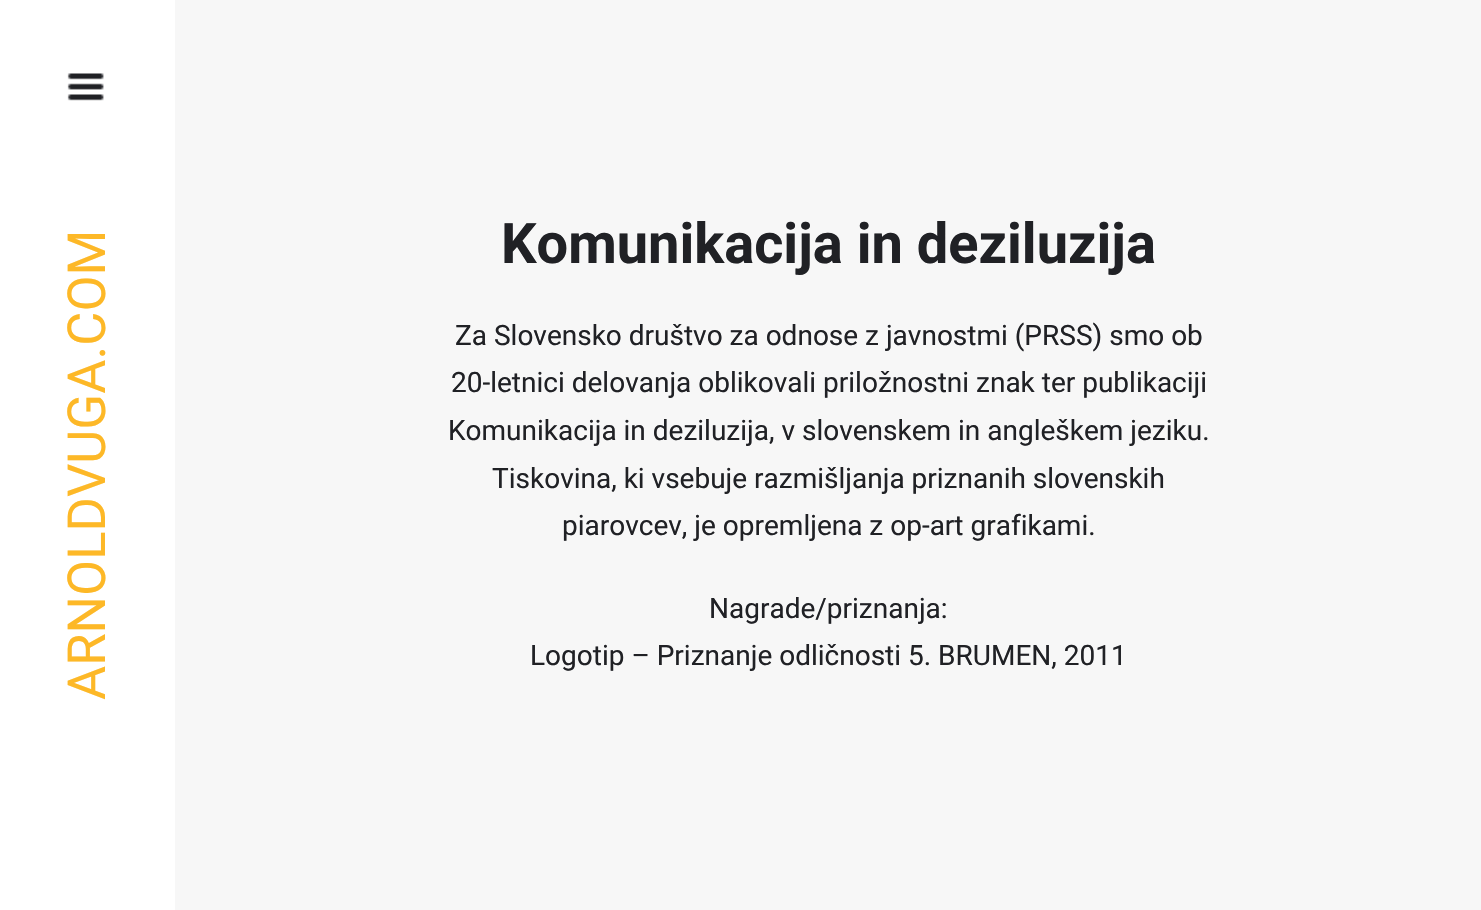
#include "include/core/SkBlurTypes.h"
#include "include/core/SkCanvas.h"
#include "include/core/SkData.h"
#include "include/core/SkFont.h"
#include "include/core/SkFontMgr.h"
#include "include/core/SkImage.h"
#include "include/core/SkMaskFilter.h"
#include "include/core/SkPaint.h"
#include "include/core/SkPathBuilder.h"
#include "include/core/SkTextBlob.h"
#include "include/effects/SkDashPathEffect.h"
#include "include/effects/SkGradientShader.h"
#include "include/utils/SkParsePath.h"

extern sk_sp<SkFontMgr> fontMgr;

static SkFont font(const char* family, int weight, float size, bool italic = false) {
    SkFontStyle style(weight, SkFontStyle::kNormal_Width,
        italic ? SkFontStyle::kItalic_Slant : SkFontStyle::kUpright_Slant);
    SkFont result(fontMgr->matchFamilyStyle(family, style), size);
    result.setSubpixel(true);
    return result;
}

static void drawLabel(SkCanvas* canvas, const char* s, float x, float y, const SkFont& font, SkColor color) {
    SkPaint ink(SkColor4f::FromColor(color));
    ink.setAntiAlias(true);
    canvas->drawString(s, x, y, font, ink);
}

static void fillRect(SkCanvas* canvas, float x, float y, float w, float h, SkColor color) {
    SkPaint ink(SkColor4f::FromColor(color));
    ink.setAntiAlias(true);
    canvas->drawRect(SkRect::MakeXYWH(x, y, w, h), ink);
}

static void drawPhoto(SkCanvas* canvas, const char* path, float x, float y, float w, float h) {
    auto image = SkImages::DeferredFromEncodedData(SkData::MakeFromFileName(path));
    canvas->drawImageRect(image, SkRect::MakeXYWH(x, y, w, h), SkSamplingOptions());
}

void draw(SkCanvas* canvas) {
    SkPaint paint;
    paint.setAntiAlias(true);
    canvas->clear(0xFFF7F7F7);
    fillRect(canvas, 0, 0, 175, 910, 0xFFFFFFFF);
    drawPhoto(canvas, "assets/img1.png", 67, 73, 37, 28);
    SkFont font1 = font("Roboto", 400, 52.5f);
    canvas->save();
    canvas->rotate(-90, 105, 700);
    drawLabel(canvas, "ARNOLDVUGA.COM", 105, 700, font1, 0xFFFDB827);
    canvas->restore();
    SkFont font2 = font("Roboto", 700, 56);
    drawLabel(canvas, "Komunikacija in deziluzija", 501, 263, font2, 0xFF202125);
    SkFont font3 = font("Roboto", 400, 28);
    drawLabel(canvas, "Za Slovensko društvo za odnose z javnostmi (PRSS) smo ob", 455, 345, font3, 0xFF202125);
    drawLabel(canvas, "20-letnici delovanja oblikovali priložnostni znak ter publikaciji", 451, 392, font3, 0xFF202125);
    drawLabel(canvas, "Komunikacija in deziluzija, v slovenskem in angleškem jeziku.", 448, 440, font3, 0xFF202125);
    drawLabel(canvas, "Tiskovina, ki vsebuje razmišljanja priznanih slovenskih", 492, 488, font3, 0xFF202125);
    drawLabel(canvas, "piarovcev, je opremljena z op-art grafikami.", 562, 535, font3, 0xFF202125);
    drawLabel(canvas, "Nagrade/priznanja:", 709, 618, font3, 0xFF202125);
    drawLabel(canvas, "Logotip – Priznanje odličnosti 5. BRUMEN, 2011", 530, 665, font3, 0xFF202125);
}
